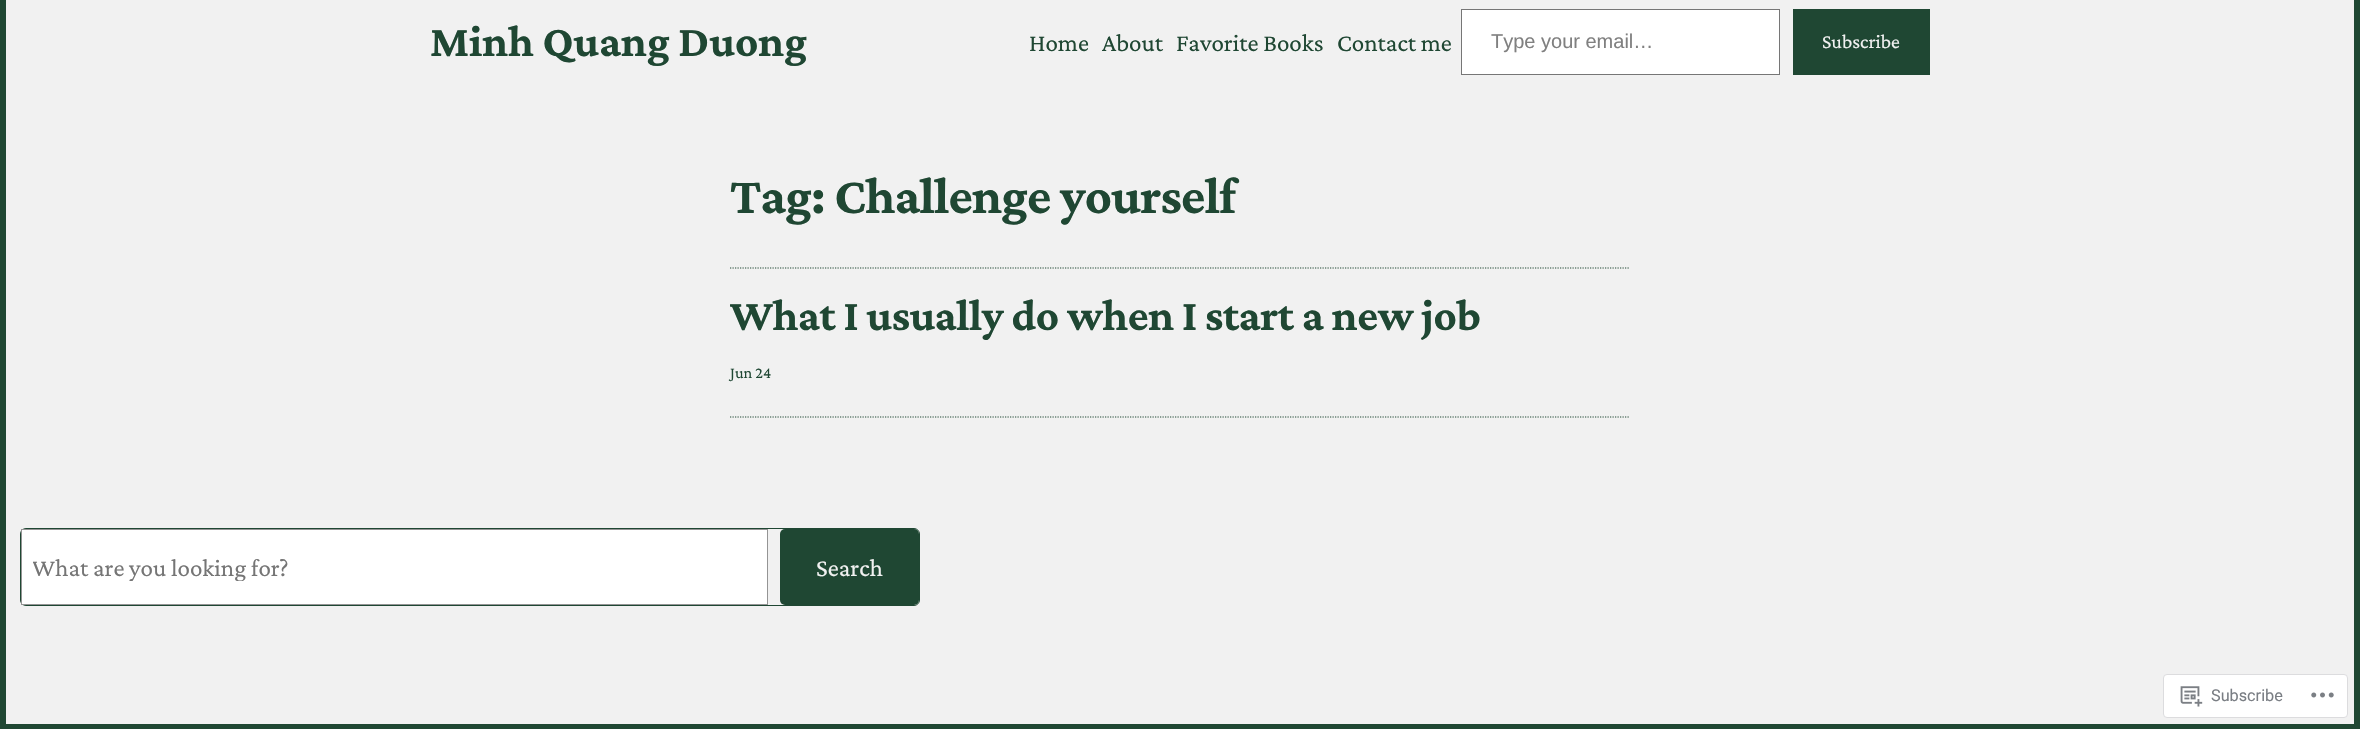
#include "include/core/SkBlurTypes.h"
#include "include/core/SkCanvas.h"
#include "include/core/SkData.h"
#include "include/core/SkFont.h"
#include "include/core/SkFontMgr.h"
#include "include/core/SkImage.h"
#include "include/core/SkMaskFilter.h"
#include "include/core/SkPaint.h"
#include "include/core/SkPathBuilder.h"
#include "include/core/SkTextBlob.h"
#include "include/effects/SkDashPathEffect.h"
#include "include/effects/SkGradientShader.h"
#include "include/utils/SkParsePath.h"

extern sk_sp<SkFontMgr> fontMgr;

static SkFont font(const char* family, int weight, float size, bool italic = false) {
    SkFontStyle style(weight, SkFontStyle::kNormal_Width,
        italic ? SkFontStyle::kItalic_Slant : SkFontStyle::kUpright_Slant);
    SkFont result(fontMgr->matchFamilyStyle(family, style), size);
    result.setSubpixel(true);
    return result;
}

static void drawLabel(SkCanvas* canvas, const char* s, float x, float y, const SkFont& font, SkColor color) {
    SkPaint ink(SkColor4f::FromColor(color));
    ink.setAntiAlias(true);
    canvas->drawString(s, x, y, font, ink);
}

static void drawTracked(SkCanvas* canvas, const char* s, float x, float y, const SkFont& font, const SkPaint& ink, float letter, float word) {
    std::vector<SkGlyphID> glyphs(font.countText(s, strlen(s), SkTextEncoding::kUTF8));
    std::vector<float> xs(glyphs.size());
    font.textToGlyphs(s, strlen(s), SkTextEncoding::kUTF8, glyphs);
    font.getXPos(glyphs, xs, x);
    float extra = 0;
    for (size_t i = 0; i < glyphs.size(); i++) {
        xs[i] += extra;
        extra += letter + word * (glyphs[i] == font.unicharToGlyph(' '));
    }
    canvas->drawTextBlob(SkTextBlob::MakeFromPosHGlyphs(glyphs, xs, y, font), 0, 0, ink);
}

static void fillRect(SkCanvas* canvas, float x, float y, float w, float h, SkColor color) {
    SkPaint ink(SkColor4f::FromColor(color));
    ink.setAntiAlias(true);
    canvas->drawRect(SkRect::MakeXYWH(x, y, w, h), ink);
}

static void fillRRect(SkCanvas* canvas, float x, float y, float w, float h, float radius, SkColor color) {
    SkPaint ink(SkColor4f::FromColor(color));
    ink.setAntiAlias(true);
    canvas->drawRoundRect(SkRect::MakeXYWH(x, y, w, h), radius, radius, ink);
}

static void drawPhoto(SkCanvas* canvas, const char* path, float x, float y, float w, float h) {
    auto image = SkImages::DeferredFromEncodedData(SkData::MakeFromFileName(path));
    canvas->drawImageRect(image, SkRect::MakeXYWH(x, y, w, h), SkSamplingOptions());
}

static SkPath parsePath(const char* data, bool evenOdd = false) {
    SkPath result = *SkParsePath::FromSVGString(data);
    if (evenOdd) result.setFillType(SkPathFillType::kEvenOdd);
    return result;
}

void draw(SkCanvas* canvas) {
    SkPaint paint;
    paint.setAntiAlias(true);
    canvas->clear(0xFFF1F1F1);
    fillRect(canvas, 2354, 0, 6, 729, 0xFF1F4733);
    fillRect(canvas, 0, 724, 2360, 5, 0xFF1F4733);
    fillRect(canvas, 0, 0, 6, 729, 0xFF1F4733);
    SkFont font1 = font("Crimson Pro", 700, 45);
    drawLabel(canvas, "Minh Quang Duong", 430, 56, font1, 0xFF1F4733);
    SkFont font2 = font("Crimson Pro", 400, 25);
    drawLabel(canvas, "Home", 1029, 51, font2, 0xFF1F4733);
    drawLabel(canvas, "About", 1102, 51, font2, 0xFF1F4733);
    drawLabel(canvas, "Favorite Books", 1176, 51, font2, 0xFF1F4733);
    drawLabel(canvas, "Contact me", 1337, 51, font2, 0xFF1F4733);
    paint.setColor(0xFFFFFFFF);
    canvas->drawRect(SkRect::MakeXYWH(1461.5f, 9.5f, 318, 65), paint);
    paint.setStroke(true);
    paint.setStrokeWidth(1);
    paint.setColor(0xFF767676);
    canvas->drawRect(SkRect::MakeXYWH(1461.5f, 9.5f, 318, 65), paint);
    SkFont font3 = font("Liberation Sans", 400, 20);
    drawLabel(canvas, "Type your email…", 1491, 48, font3, 0xFF808080);
    fillRect(canvas, 1793, 9, 137, 66, 0xFF1F4733);
    SkFont font4 = font("Crimson Pro", 400, 20);
    drawLabel(canvas, "Subscribe", 1822, 48, font4, 0xFFF1F1F1);
    SkFont font5 = font("Crimson Pro", 700, 52.5f);
    paint.setStroke(false);
    paint.setColor(0xFF1F4733);
    drawTracked(canvas, "Tag: Challenge yourself", 730, 213, font5, paint, -0.8f, 0);
    paint.setStroke(true);
    paint.setStrokeWidth(1.2f);
    paint.setPathEffect(SkDashPathEffect::Make({{1.25f, 1.25f}}, 0));
    canvas->drawPath(parsePath("M730 268H1630"), paint);
    paint.setPathEffect(nullptr);
    paint.setStroke(false);
    drawTracked(canvas, "What I usually do when I start a new job", 730, 330, font1, paint, -0.4f, 0);
    SkFont font6 = font("Crimson Pro", 400, 16.25f);
    drawLabel(canvas, "Jun 24", 730, 378, font6, 0xFF1F4733);
    paint.setStroke(true);
    paint.setPathEffect(SkDashPathEffect::Make({{1.25f, 1.25f}}, 0));
    canvas->drawPath(parsePath("M730 417H1630"), paint);
    paint.setPathEffect(nullptr);
    paint.setStrokeWidth(1);
    canvas->drawRoundRect(SkRect::MakeXYWH(20.5f, 528.5f, 899, 77), 5.5f, 5.5f, paint);
    paint.setStroke(false);
    paint.setColor(0xFFFFFFFF);
    canvas->drawRect(SkRect::MakeXYWH(21.5f, 529.5f, 746, 75), paint);
    paint.setStroke(true);
    paint.setColor(0xFF949494);
    canvas->drawRect(SkRect::MakeXYWH(21.5f, 529.5f, 746, 75), paint);
    canvas->save();
    canvas->clipRect(SkRect::MakeXYWH(33, 554, 701, 27));
    drawLabel(canvas, "What are you looking for?", 32, 576, font2, 0xFF757575);
    canvas->restore();
    fillRRect(canvas, 780, 529, 139, 76, 5, 0xFF1F4733);
    drawLabel(canvas, "Search", 816, 576, font2, 0xFFF1F1F1);
    paint.setStroke(false);
    paint.setColor(0xFFFFFFFF);
    canvas->drawRoundRect(SkRect::MakeXYWH(2163.5f, 674.5f, 184, 43), 3.5f, 3.5f, paint);
    paint.setStroke(true);
    paint.setColor(0xFFDCDCDE);
    canvas->drawRoundRect(SkRect::MakeXYWH(2163.5f, 674.5f, 184, 43), 3.5f, 3.5f, paint);
    drawPhoto(canvas, "assets/img1.png", 2180, 686, 23, 21);
    SkFont font7 = font("Roboto", 400, 16.25f);
    drawLabel(canvas, "Subscribe", 2211, 701, font7, 0xFF7A7E84);
    drawPhoto(canvas, "assets/img2.png", 2311, 692, 23, 6);
}
